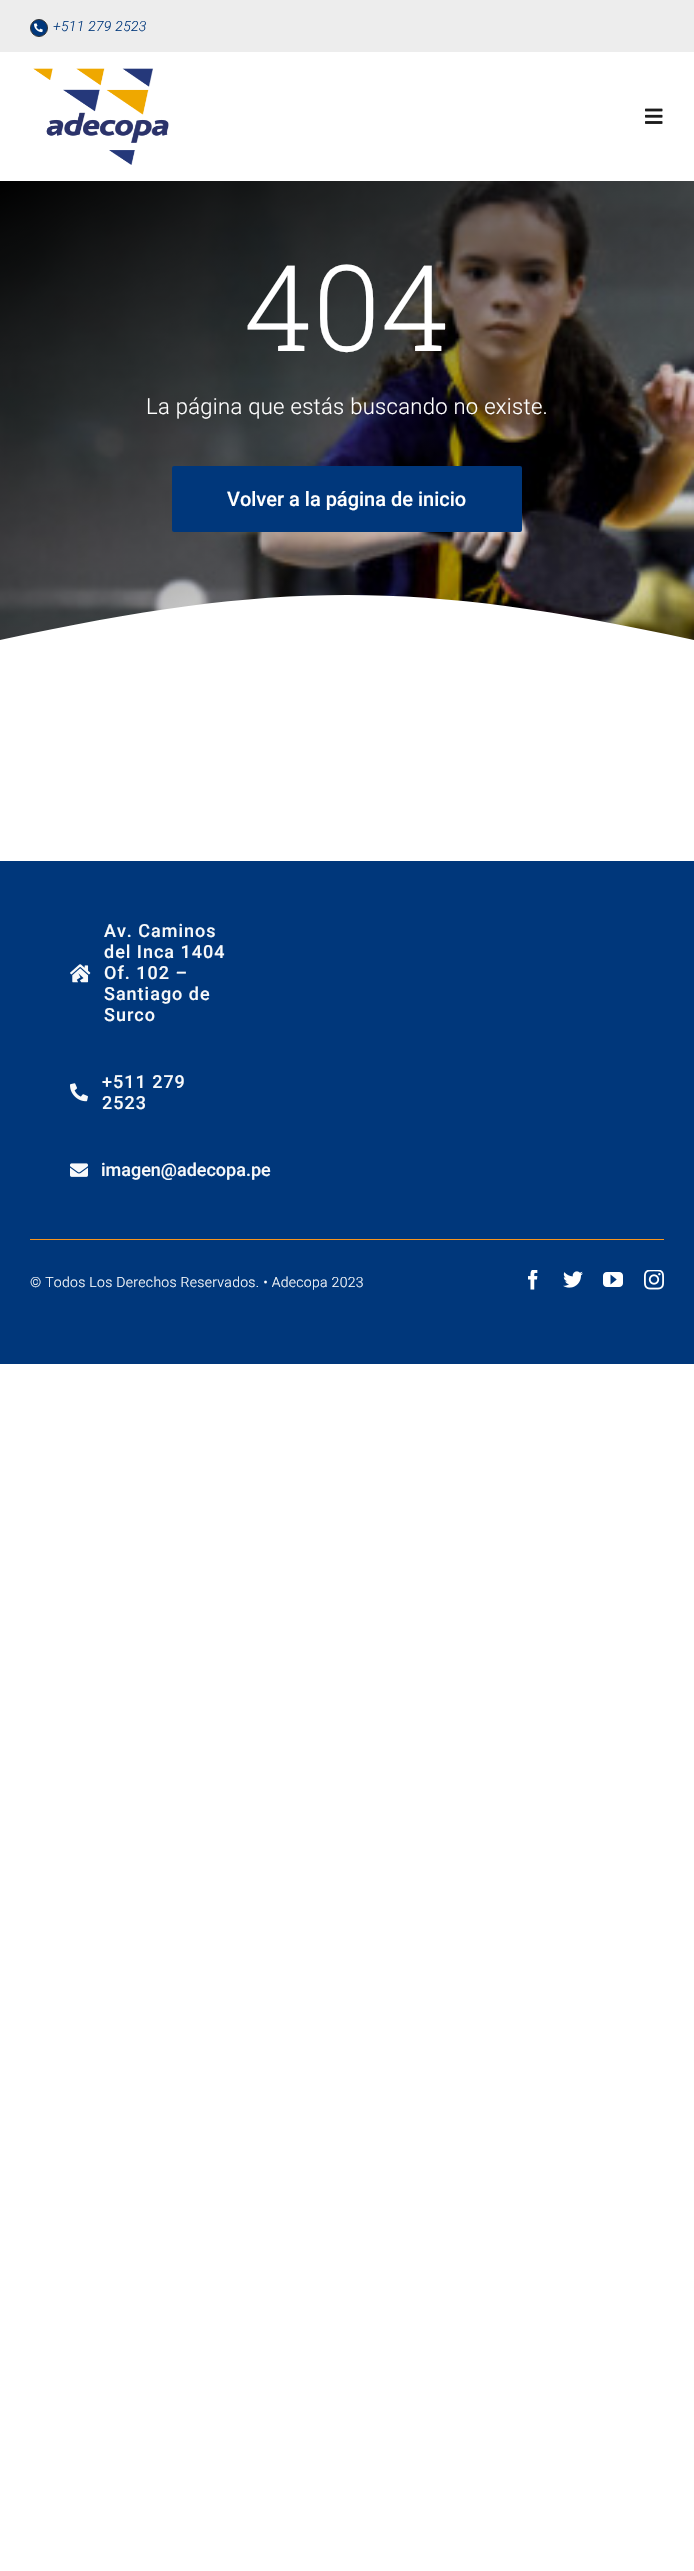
#include "include/core/SkBlurTypes.h"
#include "include/core/SkCanvas.h"
#include "include/core/SkData.h"
#include "include/core/SkFont.h"
#include "include/core/SkFontMgr.h"
#include "include/core/SkImage.h"
#include "include/core/SkMaskFilter.h"
#include "include/core/SkPaint.h"
#include "include/core/SkPathBuilder.h"
#include "include/core/SkTextBlob.h"
#include "include/effects/SkDashPathEffect.h"
#include "include/effects/SkGradientShader.h"
#include "include/utils/SkParsePath.h"

extern sk_sp<SkFontMgr> fontMgr;

static SkFont font(const char* family, int weight, float size, bool italic = false) {
    SkFontStyle style(weight, SkFontStyle::kNormal_Width,
        italic ? SkFontStyle::kItalic_Slant : SkFontStyle::kUpright_Slant);
    SkFont result(fontMgr->matchFamilyStyle(family, style), size);
    result.setSubpixel(true);
    return result;
}

static void drawLabel(SkCanvas* canvas, const char* s, float x, float y, const SkFont& font, SkColor color) {
    SkPaint ink(SkColor4f::FromColor(color));
    ink.setAntiAlias(true);
    canvas->drawString(s, x, y, font, ink);
}

static void drawTracked(SkCanvas* canvas, const char* s, float x, float y, const SkFont& font, const SkPaint& ink, float letter, float word) {
    std::vector<SkGlyphID> glyphs(font.countText(s, strlen(s), SkTextEncoding::kUTF8));
    std::vector<float> xs(glyphs.size());
    font.textToGlyphs(s, strlen(s), SkTextEncoding::kUTF8, glyphs);
    font.getXPos(glyphs, xs, x);
    float extra = 0;
    for (size_t i = 0; i < glyphs.size(); i++) {
        xs[i] += extra;
        extra += letter + word * (glyphs[i] == font.unicharToGlyph(' '));
    }
    canvas->drawTextBlob(SkTextBlob::MakeFromPosHGlyphs(glyphs, xs, y, font), 0, 0, ink);
}

static void fillRect(SkCanvas* canvas, float x, float y, float w, float h, SkColor color) {
    SkPaint ink(SkColor4f::FromColor(color));
    ink.setAntiAlias(true);
    canvas->drawRect(SkRect::MakeXYWH(x, y, w, h), ink);
}

static void fillRRect(SkCanvas* canvas, float x, float y, float w, float h, float radius, SkColor color) {
    SkPaint ink(SkColor4f::FromColor(color));
    ink.setAntiAlias(true);
    canvas->drawRoundRect(SkRect::MakeXYWH(x, y, w, h), radius, radius, ink);
}

static void drawPhoto(SkCanvas* canvas, const char* path, float x, float y, float w, float h) {
    auto image = SkImages::DeferredFromEncodedData(SkData::MakeFromFileName(path));
    canvas->drawImageRect(image, SkRect::MakeXYWH(x, y, w, h), SkSamplingOptions());
}

static SkPath parsePath(const char* data, bool evenOdd = false) {
    SkPath result = *SkParsePath::FromSVGString(data);
    if (evenOdd) result.setFillType(SkPathFillType::kEvenOdd);
    return result;
}

void draw(SkCanvas* canvas) {
    SkPaint paint;
    paint.setAntiAlias(true);
    canvas->clear(0xFFFFFFFF);
    fillRect(canvas, 0, 0, 694, 52, 0xFFEDEDED);
    paint.setColor(0xFF00377B);
    canvas->drawCircle(39, 28, 8.5f, paint);
    paint.setStroke(true);
    paint.setStrokeWidth(1);
    paint.setColor(0xFF333333);
    canvas->drawCircle(39, 28, 8.5f, paint);
    drawPhoto(canvas, "assets/img1.png", 34, 23, 9, 10);
    SkFont font1 = font("Roboto", 300, 14, true);
    paint.setStroke(false);
    paint.setColor(0xFF00377B);
    drawTracked(canvas, "+511 279 2523", 53, 31, font1, paint, 0.3f, 0);
    drawPhoto(canvas, "assets/img2.png", 33, 68, 136, 97);
    drawPhoto(canvas, "assets/img3.png", 645, 108, 18, 16);
    drawPhoto(canvas, "assets/img4.png", 0, 181, 694, 459);
    SkFont font2 = font("Roboto Slab", 300, 120);
    drawLabel(canvas, "404", 244, 351, font2, 0xFFFFFFFF);
    SkFont font3 = font("Roboto", 300, 22);
    paint.setColor(0xFFFFFFFF);
    drawTracked(canvas, "La página que estás buscando no existe.", 146, 414, font3, paint, 0.3f, 0);
    fillRRect(canvas, 172, 466, 350, 66, 2, 0xFF00377B);
    SkFont font4 = font("Roboto", 500, 20);
    drawLabel(canvas, "Volver a la página de inicio", 227, 506, font4, 0xFFFFFFFF);
    canvas->drawPath(parsePath("M0 640C278 580 416 580 694 640Z"), paint);
    fillRect(canvas, 0, 861, 694, 503, 0xFF00377B);
    drawPhoto(canvas, "assets/img5.png", 70, 964, 21, 19);
    SkFont font5 = font("Roboto", 500, 18);
    paint.setColor(0xFFF8F9FA);
    drawTracked(canvas, "Av. Caminos", 104, 937, font5, paint, 1, 0);
    drawTracked(canvas, "del Inca 1404", 104, 958, font5, paint, 1, 0);
    drawTracked(canvas, "Of. 102 –", 104, 979, font5, paint, 1, 0);
    drawTracked(canvas, "Santiago de", 104, 1000, font5, paint, 1, 0);
    drawTracked(canvas, "Surco", 104, 1021, font5, paint, 1, 0);
    drawPhoto(canvas, "assets/img6.png", 70, 1083, 18, 19);
    drawTracked(canvas, "+511 279", 102, 1088, font5, paint, 1, 0);
    drawTracked(canvas, "2523", 102, 1109, font5, paint, 1, 0);
    drawPhoto(canvas, "assets/img7.png", 70, 1163, 18, 14);
    drawLabel(canvas, "imagen@adecopa.pe", 101, 1176, font5, 0xFFF8F9FA);
    fillRect(canvas, 30, 1239, 634, 1, 0xFFF7941D);
    SkFont font6 = font("Roboto", 300, 14);
    paint.setColor(0xFFFFFFFF);
    drawTracked(canvas, "© Todos Los Derechos Reservados. • Adecopa 2023", 30, 1287, font6, paint, 0.3f, 0);
    drawPhoto(canvas, "assets/img8.png", 528, 1270, 10, 20);
    drawPhoto(canvas, "assets/img9.png", 563, 1271, 20, 17);
    drawPhoto(canvas, "assets/img10.png", 603, 1272, 20, 15);
    drawPhoto(canvas, "assets/img11.png", 644, 1270, 20, 20);
}
